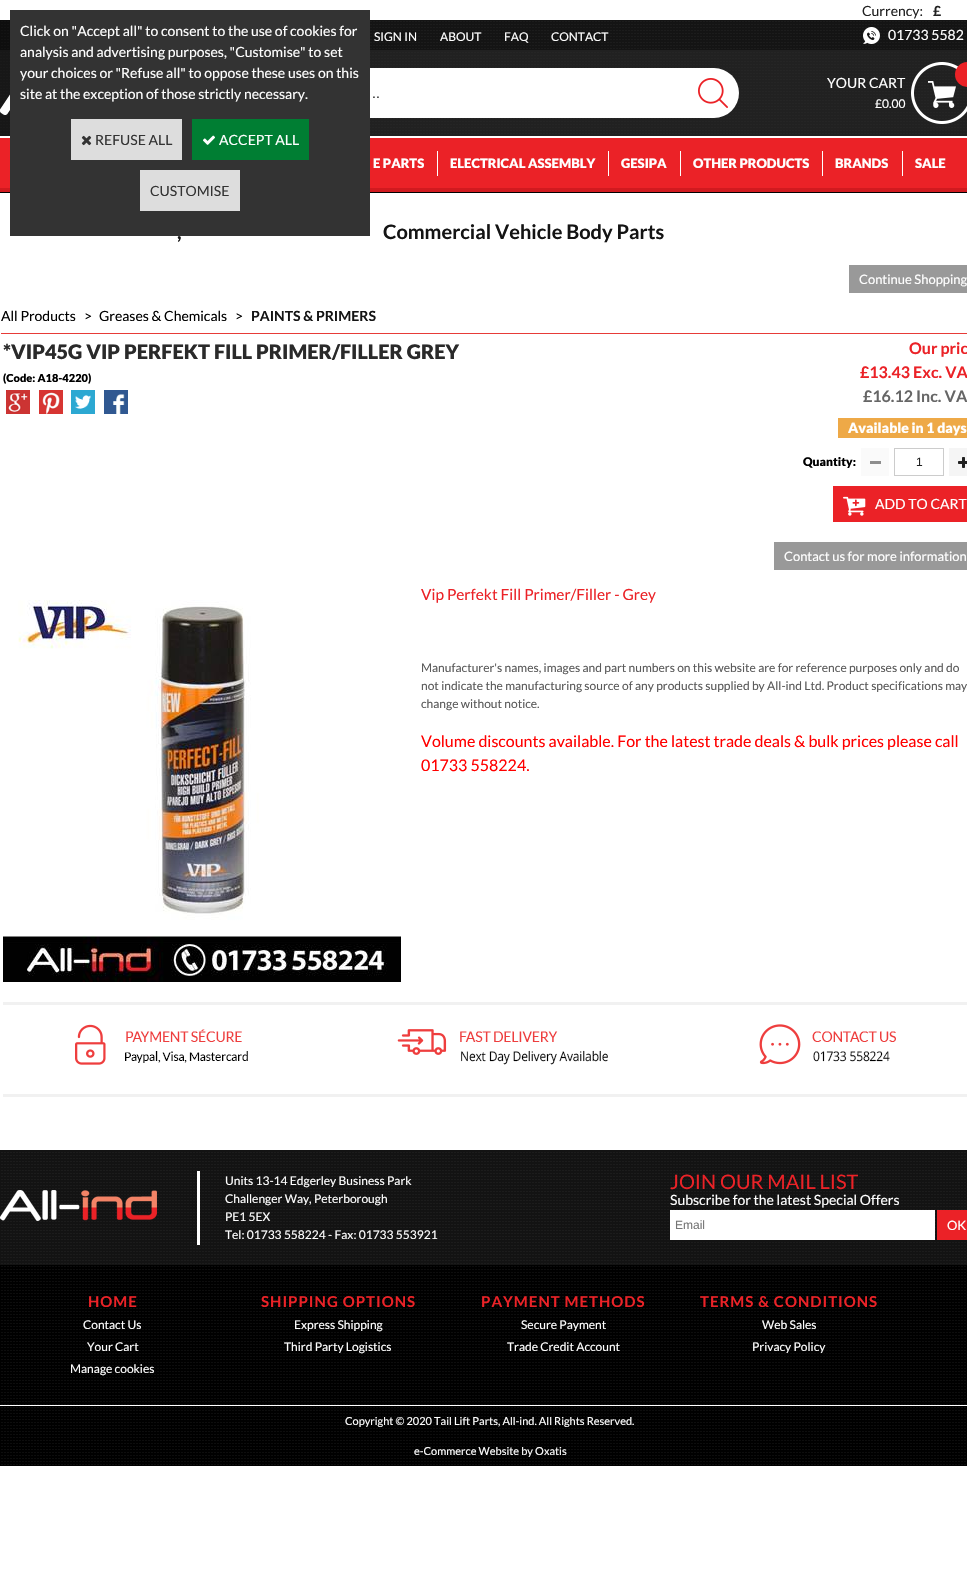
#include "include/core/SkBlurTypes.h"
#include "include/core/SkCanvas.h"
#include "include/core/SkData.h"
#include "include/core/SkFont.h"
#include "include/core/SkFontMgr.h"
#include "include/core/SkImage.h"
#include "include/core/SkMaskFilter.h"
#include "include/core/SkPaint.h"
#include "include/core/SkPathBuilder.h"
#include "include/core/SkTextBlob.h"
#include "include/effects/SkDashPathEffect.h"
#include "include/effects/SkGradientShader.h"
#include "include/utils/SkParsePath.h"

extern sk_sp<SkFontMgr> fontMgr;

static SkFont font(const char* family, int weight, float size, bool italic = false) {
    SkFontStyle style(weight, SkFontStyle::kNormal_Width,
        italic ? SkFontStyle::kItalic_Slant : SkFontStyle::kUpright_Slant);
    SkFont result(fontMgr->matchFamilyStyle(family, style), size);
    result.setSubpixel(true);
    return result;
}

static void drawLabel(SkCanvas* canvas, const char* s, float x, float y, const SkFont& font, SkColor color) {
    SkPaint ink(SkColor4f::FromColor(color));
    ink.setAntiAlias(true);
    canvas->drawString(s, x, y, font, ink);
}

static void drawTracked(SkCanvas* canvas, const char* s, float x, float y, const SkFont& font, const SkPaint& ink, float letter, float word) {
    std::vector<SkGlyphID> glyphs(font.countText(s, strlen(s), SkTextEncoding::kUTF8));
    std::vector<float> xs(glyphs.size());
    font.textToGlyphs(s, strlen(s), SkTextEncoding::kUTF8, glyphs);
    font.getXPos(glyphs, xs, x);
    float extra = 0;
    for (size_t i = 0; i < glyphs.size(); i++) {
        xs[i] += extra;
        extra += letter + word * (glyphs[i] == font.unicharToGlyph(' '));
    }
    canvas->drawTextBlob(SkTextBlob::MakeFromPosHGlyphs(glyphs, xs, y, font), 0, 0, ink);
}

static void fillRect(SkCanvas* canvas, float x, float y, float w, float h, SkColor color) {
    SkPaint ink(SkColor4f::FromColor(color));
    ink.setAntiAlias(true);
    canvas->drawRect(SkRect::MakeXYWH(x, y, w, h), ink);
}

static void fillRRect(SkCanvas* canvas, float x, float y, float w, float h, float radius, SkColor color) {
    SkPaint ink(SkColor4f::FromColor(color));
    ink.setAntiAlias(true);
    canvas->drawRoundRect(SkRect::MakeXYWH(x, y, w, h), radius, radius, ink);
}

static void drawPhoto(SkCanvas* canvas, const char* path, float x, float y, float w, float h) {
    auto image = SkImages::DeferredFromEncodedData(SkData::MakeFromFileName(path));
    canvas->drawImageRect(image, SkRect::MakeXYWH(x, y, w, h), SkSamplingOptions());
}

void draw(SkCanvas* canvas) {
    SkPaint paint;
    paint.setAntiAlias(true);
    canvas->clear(0xFFFFFFFF);
    SkFont font1 = font("Lato", 400, 14);
    drawLabel(canvas, "Currency:", 862, 16, font1, 0xFF212121);
    SkFont font2 = font("Lato", 700, 14);
    drawLabel(canvas, "£", 933, 16, font2, 0xFF212121);
    fillRect(canvas, 0, 192, 967, 1, 0xFF000000);
    drawPhoto(canvas, "assets/img3.png", 0, 20, 967, 172);
    fillRRect(canvas, 314, 68, 425, 50, 25, 0xFFFFFFFF);
    fillRect(canvas, 10, 10, 360, 226, 0xFF333333);
    drawLabel(canvas, "Click on \"Accept all\" to consent to the use of cookies for", 20, 36, font1, 0xFFFFFFFF);
    drawLabel(canvas, "analysis and advertising purposes, \"Customise\" to set", 20, 57, font1, 0xFFFFFFFF);
    drawLabel(canvas, "your choices or \"Refuse all\" to oppose these uses on this", 20, 78, font1, 0xFFFFFFFF);
    drawLabel(canvas, "site at the exception of those strictly necessary.", 20, 99, font1, 0xFFFFFFFF);
    fillRect(canvas, 71, 119, 111, 41, 0xFFDDDDDD);
    drawPhoto(canvas, "assets/img1.png", 81, 135, 11, 11);
    drawLabel(canvas, "REFUSE ALL", 95, 145, font1, 0xFF333333);
    fillRect(canvas, 192, 119, 117, 41, 0xFF007E33);
    drawPhoto(canvas, "assets/img2.png", 203, 135, 12, 10);
    drawLabel(canvas, "ACCEPT ALL", 219, 145, font1, 0xFFFFFFFF);
    fillRect(canvas, 140, 170, 100, 41, 0xFFDDDDDD);
    drawLabel(canvas, "CUSTOMISE", 150, 196, font1, 0xFF333333);
    SkFont font3 = font("Lato", 400, 12);
    drawLabel(canvas, "SIGN IN", 374, 41, font3, 0xFFFFFFFF);
    drawLabel(canvas, "ABOUT", 440, 41, font3, 0xFFFFFFFF);
    drawLabel(canvas, "FAQ", 504, 41, font3, 0xFFFFFFFF);
    drawLabel(canvas, "CONTACT", 551, 41, font3, 0xFFFFFFFF);
    drawPhoto(canvas, "assets/img4.png", 863, 27, 17, 17);
    drawLabel(canvas, "01733 5582", 888, 40, font1, 0xFFFFFFFF);
    drawPhoto(canvas, "assets/img5.png", 0, 94, 10, 21);
    SkFont font4 = font("Liberation Sans", 400, 14);
    drawLabel(canvas, "..", 372, 98, font4, 0xFF2A2A2A);
    drawPhoto(canvas, "assets/img6.png", 698, 78, 30, 30);
    drawLabel(canvas, "YOUR CART", 827, 88, font1, 0xFFFFFFFF);
    drawLabel(canvas, "£0.00", 875, 108, font3, 0xFFFFFFFF);
    drawPhoto(canvas, "assets/img7.png", 911, 62, 56, 62);
    paint.setColor(0xFFEB2227);
    canvas->drawCircle(967.5f, 74.5f, 12.5f, paint);
    SkFont font5 = font("Lato", 900, 13);
    drawLabel(canvas, "E PARTS", 373, 168, font5, 0xFFFFFFFF);
    fillRect(canvas, 437, 151, 1, 25, 0xFFFFFFFF);
    drawLabel(canvas, "ELECTRICAL ASSEMBLY", 450, 168, font5, 0xFFFFFFFF);
    fillRect(canvas, 608, 151, 1, 25, 0xFFFFFFFF);
    drawLabel(canvas, "GESIPA", 621, 168, font5, 0xFFFFFFFF);
    fillRect(canvas, 680, 151, 1, 25, 0xFFFFFFFF);
    drawLabel(canvas, "OTHER PRODUCTS", 693, 168, font5, 0xFFFFFFFF);
    fillRect(canvas, 822, 151, 1, 25, 0xFFFFFFFF);
    drawLabel(canvas, "BRANDS", 835, 168, font5, 0xFFFFFFFF);
    fillRect(canvas, 902, 151, 1, 25, 0xFFFFFFFF);
    drawLabel(canvas, "SALE", 915, 168, font5, 0xFFFFFFFF);
    SkFont font6 = font("Lato", 700, 20);
    drawLabel(canvas, ",", 177, 239, font6, 0xFF141414);
    drawLabel(canvas, "Commercial Vehicle Body Parts", 383, 239, font6, 0xFF141414);
    fillRect(canvas, 849, 265, 118, 28, 0xFF999999);
    SkFont font7 = font("Lato", 400, 13);
    drawLabel(canvas, "Continue Shopping", 859, 284, font7, 0xFFFFFFFF);
    drawLabel(canvas, "All Products", 1, 321, font1, 0xFF000000);
    drawLabel(canvas, ">", 84, 321, font1, 0xFF000000);
    drawLabel(canvas, "Greases & Chemicals", 99, 321, font1, 0xFF000000);
    drawLabel(canvas, ">", 235, 321, font1, 0xFF000000);
    drawLabel(canvas, "PAINTS & PRIMERS", 251, 321, font2, 0xFF141414);
    fillRect(canvas, 1, 333, 966, 1, 0xFFE73B38);
    SkFont font8 = font("Lato", 900, 20);
    drawLabel(canvas, "*VIP45G VIP PERFEKT FILL PRIMER/FILLER GREY", 3, 359, font8, 0xFF2A2A2A);
    SkFont font9 = font("Lato", 900, 11);
    drawLabel(canvas, "(Code: A18-4220)", 3, 382, font9, 0xFF000000);
    drawPhoto(canvas, "assets/img8.png", 6, 390, 24, 24);
    drawPhoto(canvas, "assets/img9.png", 39, 390, 24, 24);
    drawPhoto(canvas, "assets/img10.png", 71, 390, 24, 24);
    drawPhoto(canvas, "assets/img11.png", 104, 390, 24, 24);
    SkFont font10 = font("Lato", 700, 16);
    drawLabel(canvas, "Our pric", 909, 354, font10, 0xFFEB2227);
    drawLabel(canvas, "£13.43 Exc. VA", 860, 378, font10, 0xFFEB2227);
    drawLabel(canvas, "£16.12 Inc. VA", 863, 402, font10, 0xFF666666);
    fillRect(canvas, 838, 418, 129, 20, 0xFFEEA947);
    SkFont font11 = font("Lato", 900, 14);
    drawLabel(canvas, "Available in 1 days", 848, 433, font11, 0xFFFFFFFF);
    SkFont font12 = font("Lato", 900, 12);
    drawLabel(canvas, "Quantity:", 803, 466, font12, 0xFF000000);
    fillRect(canvas, 861, 448, 28, 28, 0xFFFAFAFA);
    fillRect(canvas, 870, 461, 11, 3, 0xFF8E8E8E);
    paint.setStroke(true);
    paint.setStrokeWidth(1);
    paint.setColor(0xFFCCCCCC);
    canvas->drawRect(SkRect::MakeXYWH(894.5f, 448.5f, 49, 27), paint);
    SkFont font13 = font("Liberation Sans", 400, 12);
    drawLabel(canvas, "1", 916, 466, font13, 0xFF212121);
    fillRect(canvas, 949, 448, 18, 28, 0xFFF5F5F5);
    drawPhoto(canvas, "assets/img12.png", 958, 457, 9, 11);
    fillRect(canvas, 833, 486, 134, 36, 0xFFEB2227);
    drawPhoto(canvas, "assets/img13.png", 843, 496, 23, 20);
    drawLabel(canvas, "ADD TO CART", 875, 509, font1, 0xFFFFFFFF);
    fillRect(canvas, 774, 542, 193, 28, 0xFF999999);
    drawLabel(canvas, "Contact us for more information", 784, 561, font7, 0xFFFFFFFF);
    SkFont font14 = font("Lato", 400, 15.4f);
    drawLabel(canvas, "Vip Perfekt Fill Primer/Filler - Grey", 421, 600, font14, 0xFFEB2227);
    drawPhoto(canvas, "assets/img14.png", 3, 600, 398, 382);
    drawLabel(canvas, "Manufacturer's names, images and part numbers on this website are for reference purposes only and do", 421, 672, font3, 0xFF5A5A5A);
    drawLabel(canvas, "not indicate the manufacturing source of any products supplied by All-ind Ltd. Product specifications may", 421, 690, font3, 0xFF5A5A5A);
    drawLabel(canvas, "change without notice.", 421, 708, font3, 0xFF5A5A5A);
    SkFont font15 = font("Lato", 400, 16);
    drawLabel(canvas, "Volume discounts available. For the latest trade deals & bulk prices please call", 421, 747, font15, 0xFFFF0000);
    drawLabel(canvas, "01733 558224.", 421, 771, font15, 0xFFFF0000);
    fillRect(canvas, 3, 1002, 964, 3, 0xFFF1F1F1);
    fillRect(canvas, 3, 1094, 964, 3, 0xFFF1F1F1);
    drawPhoto(canvas, "assets/img15.png", 75, 1024, 173, 41);
    drawPhoto(canvas, "assets/img16.png", 397, 1029, 211, 36);
    drawPhoto(canvas, "assets/img17.png", 759, 1024, 137, 41);
    fillRect(canvas, 0, 1465, 967, 1, 0xFF000000);
    drawPhoto(canvas, "assets/img18.png", 0, 1150, 967, 315);
    drawPhoto(canvas, "assets/img19.png", 0, 1190, 157, 31);
    fillRect(canvas, 197, 1171, 3, 74, 0xFFFFFFFF);
    drawLabel(canvas, "Units 13-14 Edgerley Business Park", 225, 1185, font3, 0xFFFFFFFF);
    drawLabel(canvas, "Challenger Way, Peterborough", 225, 1203, font3, 0xFFFFFFFF);
    drawLabel(canvas, "PE1 5EX", 225, 1221, font3, 0xFFFFFFFF);
    drawLabel(canvas, "Tel: 01733 558224 - Fax: 01733 553921", 225, 1239, font3, 0xFFFFFFFF);
    SkFont font16 = font("Lato", 400, 20);
    drawLabel(canvas, "JOIN OUR MAIL LIST", 670, 1189, font16, 0xFFEB2227);
    drawLabel(canvas, "Subscribe for the latest Special Offers", 670, 1205, font1, 0xFFFFFFFF);
    fillRect(canvas, 670, 1210, 265, 30, 0xFFFFFFFF);
    drawLabel(canvas, "Email", 675, 1229, font13, 0xFF757575);
    fillRect(canvas, 937, 1210, 30, 30, 0xFFEB2227);
    drawLabel(canvas, "OK", 947, 1230, font7, 0xFFFFFFFF);
    fillRect(canvas, 0, 1405, 967, 1, 0xFFFFFFFF);
    SkFont font17 = font("Lato", 700, 15);
    paint.setStroke(false);
    paint.setColor(0xFFEB2227);
    drawTracked(canvas, "HOME", 88, 1307, font17, paint, 1, 0);
    drawTracked(canvas, "SHIPPING OPTIONS", 261, 1307, font17, paint, 1, 0);
    drawTracked(canvas, "PAYMENT METHODS", 481, 1307, font17, paint, 1, 0);
    drawTracked(canvas, "TERMS & CONDITIONS", 700, 1307, font17, paint, 1, 0);
    drawLabel(canvas, "Contact Us", 83, 1329, font3, 0xFFFFFFFF);
    drawLabel(canvas, "Express Shipping", 294, 1329, font3, 0xFFFFFFFF);
    drawLabel(canvas, "Secure Payment", 521, 1329, font3, 0xFFFFFFFF);
    drawLabel(canvas, "Web Sales", 762, 1329, font3, 0xFFFFFFFF);
    drawLabel(canvas, "Your Cart", 87, 1351, font3, 0xFFFFFFFF);
    drawLabel(canvas, "Third Party Logistics", 284, 1351, font3, 0xFFFFFFFF);
    drawLabel(canvas, "Trade Credit Account", 507, 1351, font3, 0xFFFFFFFF);
    drawLabel(canvas, "Privacy Policy", 752, 1351, font3, 0xFFFFFFFF);
    drawLabel(canvas, "Manage cookies", 70, 1373, font3, 0xFFFFFFFF);
    SkFont font18 = font("Lato", 400, 11);
    drawLabel(canvas, "Copyright © 2020 Tail Lift Parts, All-ind. All Rights Reserved.", 345, 1425, font18, 0xFFFFFFFF);
    drawLabel(canvas, "e-Commerce Website by Oxatis", 414, 1455, font18, 0xFFFFFFFF);
}
